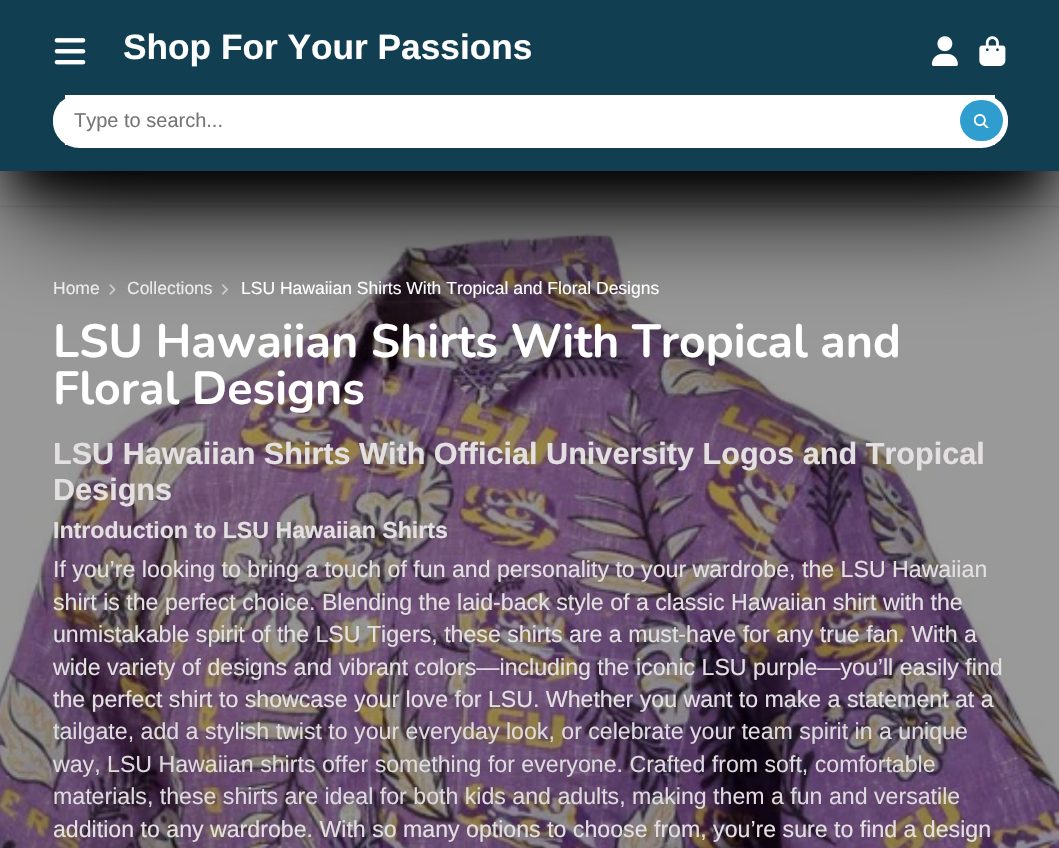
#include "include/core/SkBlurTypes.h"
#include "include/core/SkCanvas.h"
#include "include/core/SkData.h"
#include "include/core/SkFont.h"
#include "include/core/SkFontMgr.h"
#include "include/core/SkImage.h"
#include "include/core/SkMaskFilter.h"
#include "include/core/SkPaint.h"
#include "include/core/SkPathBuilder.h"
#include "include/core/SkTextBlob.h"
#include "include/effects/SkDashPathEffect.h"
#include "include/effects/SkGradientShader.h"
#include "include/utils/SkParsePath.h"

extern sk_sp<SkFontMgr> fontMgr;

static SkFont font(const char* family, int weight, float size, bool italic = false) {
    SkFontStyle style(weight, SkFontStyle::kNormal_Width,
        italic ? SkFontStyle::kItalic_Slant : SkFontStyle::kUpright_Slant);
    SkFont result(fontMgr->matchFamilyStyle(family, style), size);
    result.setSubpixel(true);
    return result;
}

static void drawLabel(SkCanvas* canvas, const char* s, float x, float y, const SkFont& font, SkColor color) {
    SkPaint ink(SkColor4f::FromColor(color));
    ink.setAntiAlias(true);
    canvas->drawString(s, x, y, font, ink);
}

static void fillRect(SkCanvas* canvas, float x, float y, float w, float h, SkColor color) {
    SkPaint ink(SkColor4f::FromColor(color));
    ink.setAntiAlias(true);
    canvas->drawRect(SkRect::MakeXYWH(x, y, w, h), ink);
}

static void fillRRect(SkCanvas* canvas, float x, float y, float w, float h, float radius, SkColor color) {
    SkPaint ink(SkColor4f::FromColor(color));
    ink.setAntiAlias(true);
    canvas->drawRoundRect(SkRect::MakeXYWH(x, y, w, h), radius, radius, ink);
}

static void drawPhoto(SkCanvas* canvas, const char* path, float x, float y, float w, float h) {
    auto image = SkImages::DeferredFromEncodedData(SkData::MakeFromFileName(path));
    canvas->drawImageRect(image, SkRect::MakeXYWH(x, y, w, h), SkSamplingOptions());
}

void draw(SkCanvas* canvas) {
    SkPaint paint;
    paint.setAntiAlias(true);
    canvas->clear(0xFF8D8F91);
    drawPhoto(canvas, "assets/img5.png", 0, 171, 1059, 677);
    paint.setColor(0xFF000000);
    paint.setMaskFilter(SkMaskFilter::MakeBlur(kNormal_SkBlurStyle, 24));
    canvas->drawRect(SkRect::MakeXYWH(18, 50, 1025, 136), paint);
    paint.setMaskFilter(nullptr);
    drawPhoto(canvas, "assets/img6.png", 109, 284, 7, 11);
    drawPhoto(canvas, "assets/img7.png", 222, 284, 6, 11);
    paint.setMaskFilter(SkMaskFilter::MakeBlur(kNormal_SkBlurStyle, 54.5f));
    canvas->drawRect(SkRect::MakeXYWH(18, 73, 1025, 136), paint);
    paint.setMaskFilter(nullptr);
    fillRect(canvas, 0, 0, 1059, 171, 0xFF123E51);
    drawPhoto(canvas, "assets/img1.png", 54, 38, 32, 27);
    SkFont font1 = font("Liberation Sans", 700, 35.25f);
    drawLabel(canvas, "Shop For Your Passions", 123, 59, font1, 0xFFFFFFFF);
    drawPhoto(canvas, "assets/img2.png", 931, 36, 27, 30);
    drawPhoto(canvas, "assets/img3.png", 979, 36, 27, 30);
    fillRRect(canvas, 53, 95, 955, 50, 25, 0xFFFFFFFF);
    fillRect(canvas, 65, 95, 930, 50, 0xFFFFFFFF);
    fillRRect(canvas, 53, 95, 955, 53, 26.5f, 0xFFFFFFFF);
    SkFont font2 = font("Liberation Sans", 400, 20);
    drawLabel(canvas, "Type to search...", 74, 127, font2, 0xFF757575);
    fillRRect(canvas, 960, 100, 43, 41, 20.5f, 0xFF2F9ECF);
    drawPhoto(canvas, "assets/img4.png", 974, 114, 15, 14);
    SkFont font3 = font("Liberation Sans", 400, 17.5f);
    drawLabel(canvas, "Home", 53, 294, font3, 0xFFEBEBEB);
    drawLabel(canvas, "Collections", 127, 294, font3, 0xFFEBEBEB);
    drawLabel(canvas, "LSU Hawaiian Shirts With Tropical and Floral Designs", 241, 294, font3, 0xFFFFFFFF);
    SkFont font4 = font("Nunito", 700, 46.5f);
    drawLabel(canvas, "LSU Hawaiian Shirts With Tropical and", 53, 357, font4, 0xFFFFFFFF);
    drawLabel(canvas, "Floral Designs", 53, 404, font4, 0xFFFFFFFF);
    SkFont font5 = font("Liberation Sans", 700, 30.6f);
    drawLabel(canvas, "LSU Hawaiian Shirts With Official University Logos and Tropical", 53, 464, font5, 0xFFE4E0E2);
    drawLabel(canvas, "Designs", 53, 500, font5, 0xFFE4E0E2);
    SkFont font6 = font("Liberation Sans", 700, 23.15f);
    drawLabel(canvas, "Introduction to LSU Hawaiian Shirts", 53, 538, font6, 0xFFE4E0E2);
    SkFont font7 = font("Liberation Sans", 400, 23.15f);
    drawLabel(canvas, "If you’re looking to bring a touch of fun and personality to your wardrobe, the LSU Hawaiian", 53, 577, font7, 0xFFE4E0E2);
    drawLabel(canvas, "shirt is the perfect choice. Blending the laid-back style of a classic Hawaiian shirt with the", 53, 610, font7, 0xFFE4E0E2);
    drawLabel(canvas, "unmistakable spirit of the LSU Tigers, these shirts are a must-have for any true fan. With a", 53, 642, font7, 0xFFE4E0E2);
    drawLabel(canvas, "wide variety of designs and vibrant colors—including the iconic LSU purple—you’ll easily find", 53, 675, font7, 0xFFE4E0E2);
    drawLabel(canvas, "the perfect shirt to showcase your love for LSU. Whether you want to make a statement at a", 53, 707, font7, 0xFFE4E0E2);
    drawLabel(canvas, "tailgate, add a stylish twist to your everyday look, or celebrate your team spirit in a unique", 53, 739, font7, 0xFFDEDADE);
    drawLabel(canvas, "way, LSU Hawaiian shirts offer something for everyone. Crafted from soft, comfortable", 53, 772, font7, 0xFFDEDADE);
    drawLabel(canvas, "materials, these shirts are ideal for both kids and adults, making them a fun and versatile", 53, 804, font7, 0xFFDEDADE);
    drawLabel(canvas, "addition to any wardrobe. With so many options to choose from, you’re sure to find a design", 53, 837, font7, 0xFFE4E0E2);
}
